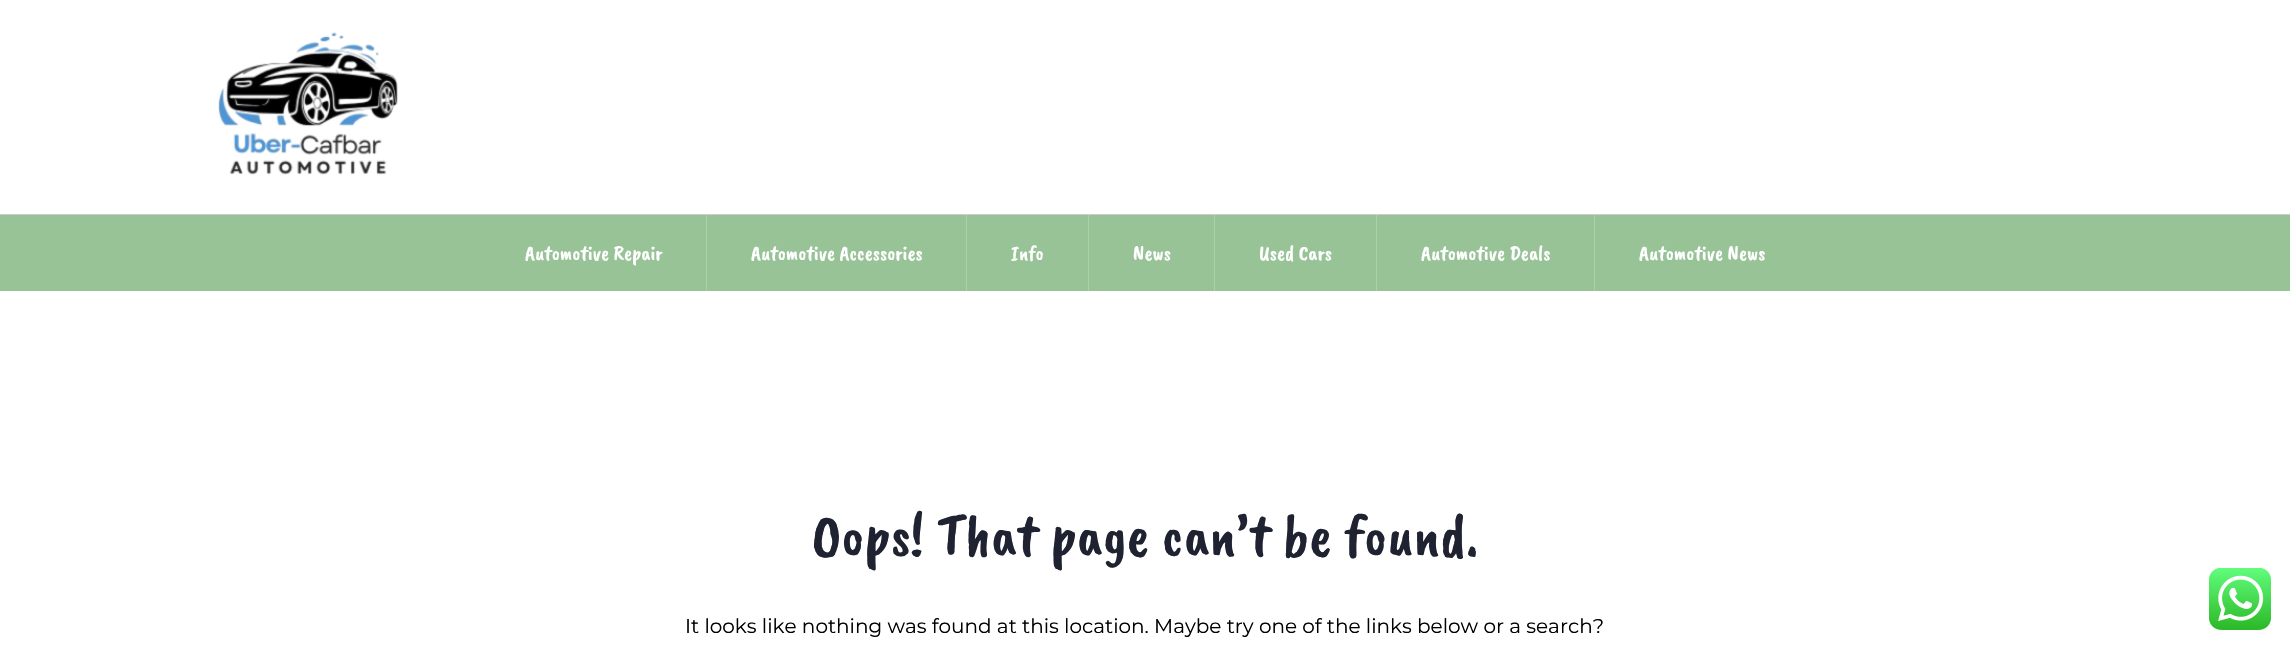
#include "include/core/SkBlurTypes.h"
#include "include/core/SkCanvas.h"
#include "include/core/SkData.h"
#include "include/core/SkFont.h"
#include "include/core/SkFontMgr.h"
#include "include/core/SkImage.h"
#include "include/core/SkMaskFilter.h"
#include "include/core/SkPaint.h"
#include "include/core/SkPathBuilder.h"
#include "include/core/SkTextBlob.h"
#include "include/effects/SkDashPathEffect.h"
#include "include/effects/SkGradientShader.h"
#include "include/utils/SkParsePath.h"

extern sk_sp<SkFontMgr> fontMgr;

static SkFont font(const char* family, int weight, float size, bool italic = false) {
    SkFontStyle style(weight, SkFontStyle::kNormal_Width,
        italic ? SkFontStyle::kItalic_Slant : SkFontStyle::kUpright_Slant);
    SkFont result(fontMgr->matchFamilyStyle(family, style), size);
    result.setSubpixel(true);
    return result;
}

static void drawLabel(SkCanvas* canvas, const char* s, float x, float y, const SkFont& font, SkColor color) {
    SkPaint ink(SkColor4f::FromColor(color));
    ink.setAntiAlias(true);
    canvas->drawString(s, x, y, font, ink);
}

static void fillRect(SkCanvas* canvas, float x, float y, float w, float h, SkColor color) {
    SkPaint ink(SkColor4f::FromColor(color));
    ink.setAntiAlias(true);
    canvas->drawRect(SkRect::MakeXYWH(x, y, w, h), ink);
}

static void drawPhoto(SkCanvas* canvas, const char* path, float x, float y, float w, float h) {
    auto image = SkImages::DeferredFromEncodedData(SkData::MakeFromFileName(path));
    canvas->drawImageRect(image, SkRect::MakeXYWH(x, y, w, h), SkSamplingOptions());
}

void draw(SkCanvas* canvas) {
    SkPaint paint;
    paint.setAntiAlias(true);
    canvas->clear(0xFFFFFFFF);
    fillRect(canvas, 0, 214, 2290, 1, 0xFFCCCCCC);
    drawPhoto(canvas, "assets/img1.png", 218, 32, 180, 143);
    fillRect(canvas, 0, 215, 2290, 76, 0xFF98C397);
    fillRect(canvas, 706, 215, 1, 76, 0xFFADCFAC);
    SkFont font1 = font("Caveat Brush", 400, 21.25f);
    drawLabel(canvas, "Automotive Repair", 525, 260, font1, 0xFFFFFFFF);
    fillRect(canvas, 966, 215, 1, 76, 0xFFADCFAC);
    drawLabel(canvas, "Automotive Accessories", 751, 260, font1, 0xFFFFFFFF);
    fillRect(canvas, 1088, 215, 1, 76, 0xFFADCFAC);
    drawLabel(canvas, "Info", 1011, 260, font1, 0xFFFFFFFF);
    fillRect(canvas, 1214, 215, 1, 76, 0xFFADCFAC);
    drawLabel(canvas, "News", 1133, 260, font1, 0xFFFFFFFF);
    fillRect(canvas, 1376, 215, 1, 76, 0xFFADCFAC);
    drawLabel(canvas, "Used Cars", 1259, 260, font1, 0xFFFFFFFF);
    fillRect(canvas, 1594, 215, 1, 76, 0xFFADCFAC);
    drawLabel(canvas, "Automotive Deals", 1421, 260, font1, 0xFFFFFFFF);
    drawLabel(canvas, "Automotive News", 1639, 260, font1, 0xFFFFFFFF);
    SkFont font2 = font("Caveat Brush", 400, 60);
    drawLabel(canvas, "Oops! That page can’t be found.", 812, 555, font2, 0xFF1F2230);
    SkFont font3 = font("Montserrat", 100, 20);
    drawLabel(canvas, "It looks like nothing was found at this location. Maybe try one of the links below or a search?", 685, 633, font3, 0xFF000000);
    drawPhoto(canvas, "assets/img2.png", 2209, 568, 62, 62);
}
